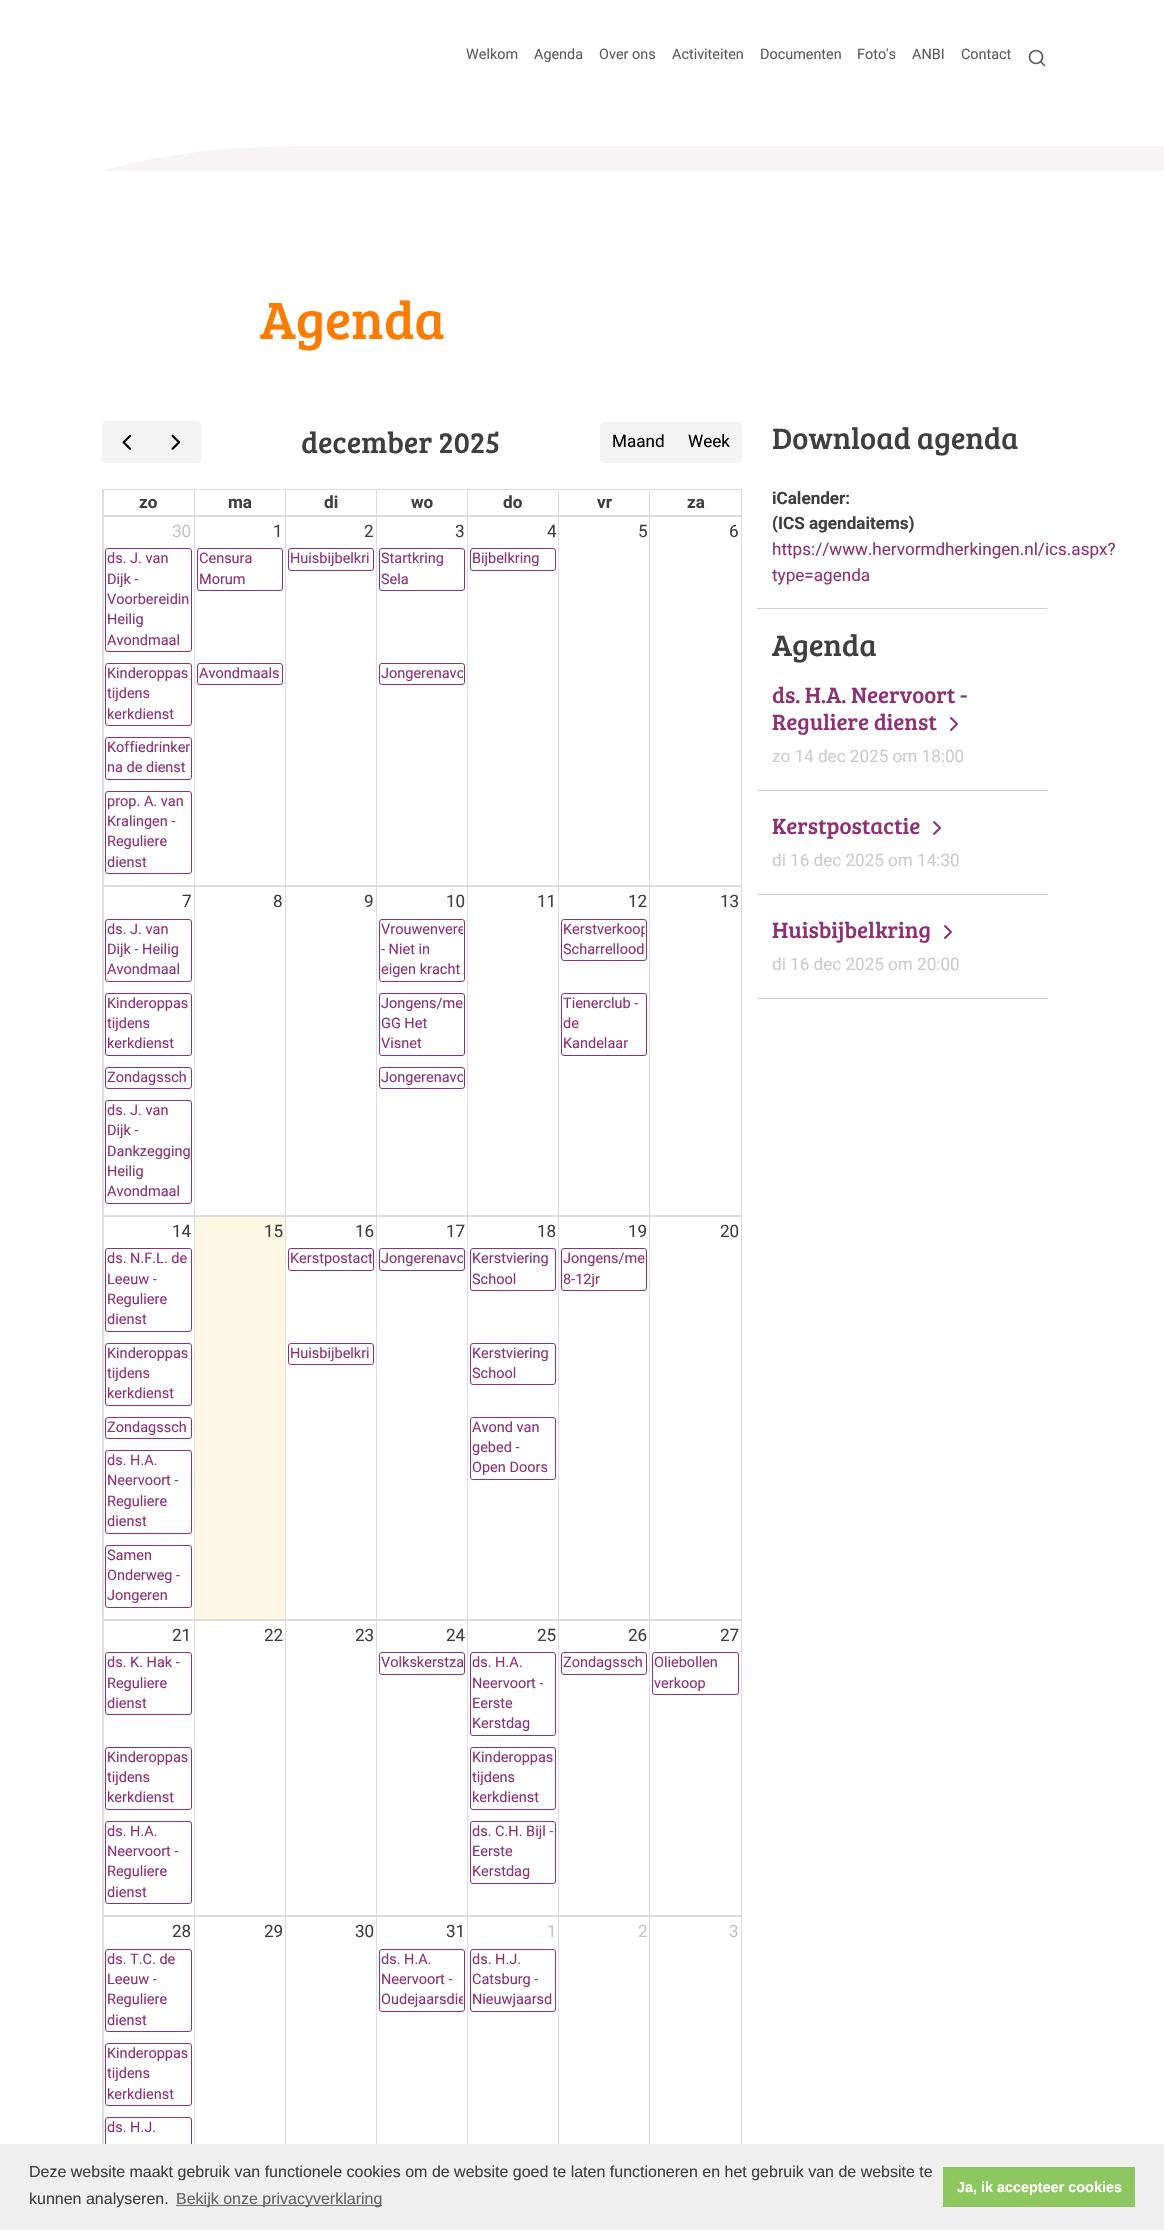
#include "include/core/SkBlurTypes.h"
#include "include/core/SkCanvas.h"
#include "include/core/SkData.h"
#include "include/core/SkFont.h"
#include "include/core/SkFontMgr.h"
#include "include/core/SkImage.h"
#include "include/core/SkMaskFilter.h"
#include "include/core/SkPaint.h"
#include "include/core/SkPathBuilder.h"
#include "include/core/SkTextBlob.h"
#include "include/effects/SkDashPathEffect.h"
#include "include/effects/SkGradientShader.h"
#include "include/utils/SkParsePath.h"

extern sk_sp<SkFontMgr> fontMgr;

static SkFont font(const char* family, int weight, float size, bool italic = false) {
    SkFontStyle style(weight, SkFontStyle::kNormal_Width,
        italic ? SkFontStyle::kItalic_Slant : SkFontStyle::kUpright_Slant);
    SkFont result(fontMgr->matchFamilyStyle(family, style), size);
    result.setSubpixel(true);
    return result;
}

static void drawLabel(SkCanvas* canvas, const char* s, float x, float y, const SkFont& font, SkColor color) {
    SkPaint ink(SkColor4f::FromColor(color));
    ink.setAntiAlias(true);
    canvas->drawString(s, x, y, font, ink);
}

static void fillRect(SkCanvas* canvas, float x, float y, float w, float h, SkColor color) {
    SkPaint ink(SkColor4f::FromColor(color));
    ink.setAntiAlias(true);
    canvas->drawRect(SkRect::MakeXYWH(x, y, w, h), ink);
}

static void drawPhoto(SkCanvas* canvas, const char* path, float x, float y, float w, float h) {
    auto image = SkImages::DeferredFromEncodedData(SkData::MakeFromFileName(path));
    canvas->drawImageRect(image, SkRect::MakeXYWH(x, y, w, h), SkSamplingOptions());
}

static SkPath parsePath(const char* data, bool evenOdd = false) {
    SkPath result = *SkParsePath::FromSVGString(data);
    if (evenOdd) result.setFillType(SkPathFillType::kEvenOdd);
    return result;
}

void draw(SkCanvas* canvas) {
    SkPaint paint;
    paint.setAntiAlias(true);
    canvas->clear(0xFFFFFFFF);
    SkFont font1 = font("Roboto", 400, 14.4f);
    drawLabel(canvas, "Welkom", 466, 59, font1, 0xFF5C5C5C);
    drawLabel(canvas, "Agenda", 534, 59, font1, 0xFF5C5C5C);
    drawLabel(canvas, "Over ons", 599, 59, font1, 0xFF5C5C5C);
    drawLabel(canvas, "Activiteiten", 672, 59, font1, 0xFF5C5C5C);
    drawLabel(canvas, "Documenten", 760, 59, font1, 0xFF5C5C5C);
    drawLabel(canvas, "Foto's", 857, 59, font1, 0xFF5C5C5C);
    drawLabel(canvas, "ANBI", 912, 59, font1, 0xFF5C5C5C);
    drawLabel(canvas, "Contact", 961, 59, font1, 0xFF5C5C5C);
    paint.setStroke(true);
    paint.setStrokeWidth(1.7f);
    paint.setColor(0xFF5C5C5C);
    canvas->drawCircle(1036, 57, 6.5f, paint);
    paint.setStrokeCap(SkPaint::kRound_Cap);
    paint.setStrokeJoin(SkPaint::kRound_Join);
    canvas->drawPath(parsePath("M1044.5 65.5L1041 62"), paint);
    paint.setStroke(false);
    paint.setColor(0xFFF7F4F5);
    canvas->drawPath(parsePath("M300 146H1164V371H0V246C0 191 134 146 300 146Z"), paint);
    paint.setColor(0xFFFFFFFF);
    canvas->drawPath(parsePath("M0 171H1164V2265C1164 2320 1030 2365 864 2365H0Z"), paint);
    SkFont font2 = font("Bree Serif", 400, 54);
    drawLabel(canvas, "Agenda", 260, 339, font2, 0xFFFA7C00);
    paint.setColor(0xFFF3F3F3);
    canvas->drawPath(parsePath("M106 421.5H151.5V462.5H106C104 462.5 102.5 461 102.5 459V425C102.5 423 104 421.5 106 421.5Z"), paint);
    paint.setStroke(true);
    paint.setStrokeWidth(1);
    paint.setStrokeCap(SkPaint::kButt_Cap);
    paint.setStrokeJoin(SkPaint::kMiter_Join);
    canvas->drawPath(parsePath("M106 421.5H151.5V462.5H106C104 462.5 102.5 461 102.5 459V425C102.5 423 104 421.5 106 421.5Z"), paint);
    drawPhoto(canvas, "assets/img1.png", 122, 434, 10, 16);
    paint.setStroke(false);
    canvas->drawPath(parsePath("M151.5 421.5H197C199 421.5 200.5 423 200.5 425V459C200.5 461 199 462.5 197 462.5H151.5Z"), paint);
    paint.setStroke(true);
    canvas->drawPath(parsePath("M151.5 421.5H197C199 421.5 200.5 423 200.5 425V459C200.5 461 199 462.5 197 462.5H151.5Z"), paint);
    drawPhoto(canvas, "assets/img2.png", 171, 434, 10, 16);
    SkFont font3 = font("Bree Serif", 400, 30);
    drawLabel(canvas, "december 2025", 301, 453, font3, 0xFF3F3F3F);
    paint.setStroke(false);
    canvas->drawPath(parsePath("M676.5 422.5H738C740 422.5 741.5 424 741.5 426V459C741.5 461 740 462.5 738 462.5H676.5Z"), paint);
    paint.setStroke(true);
    canvas->drawPath(parsePath("M676.5 422.5H738C740 422.5 741.5 424 741.5 426V459C741.5 461 740 462.5 738 462.5H676.5Z"), paint);
    paint.setStroke(false);
    canvas->drawPath(parsePath("M604 422.5H676.5V462.5H604C602 462.5 600.5 461 600.5 459V426C600.5 424 602 422.5 604 422.5Z"), paint);
    paint.setStroke(true);
    canvas->drawPath(parsePath("M604 422.5H676.5V462.5H604C602 462.5 600.5 461 600.5 459V426C600.5 424 602 422.5 604 422.5Z"), paint);
    SkFont font4 = font("Roboto", 400, 17.1f);
    drawLabel(canvas, "Maand", 612, 447, font4, 0xFF000000);
    drawLabel(canvas, "Week", 688, 447, font4, 0xFF000000);
    fillRect(canvas, 102, 489, 640, 1, 0xFFDDDDDD);
    fillRect(canvas, 102, 516, 640, 1, 0xFFDDDDDD);
    fillRect(canvas, 741, 516, 1, 1628, 0xFFDDDDDD);
    fillRect(canvas, 741, 489, 1, 28, 0xFFDDDDDD);
    fillRect(canvas, 102, 516, 1, 1628, 0xFFDDDDDD);
    fillRect(canvas, 102, 489, 1, 28, 0xFFDDDDDD);
    fillRect(canvas, 649, 515, 93, 1, 0xFFDDDDDD);
    fillRect(canvas, 649, 489, 1, 27, 0xFFDDDDDD);
    fillRect(canvas, 558, 515, 92, 1, 0xFFDDDDDD);
    fillRect(canvas, 558, 489, 1, 27, 0xFFDDDDDD);
    fillRect(canvas, 467, 515, 92, 1, 0xFFDDDDDD);
    fillRect(canvas, 467, 489, 1, 27, 0xFFDDDDDD);
    fillRect(canvas, 376, 515, 92, 1, 0xFFDDDDDD);
    fillRect(canvas, 376, 489, 1, 27, 0xFFDDDDDD);
    fillRect(canvas, 285, 515, 92, 1, 0xFFDDDDDD);
    fillRect(canvas, 285, 489, 1, 27, 0xFFDDDDDD);
    fillRect(canvas, 194, 515, 92, 1, 0xFFDDDDDD);
    fillRect(canvas, 194, 489, 1, 27, 0xFFDDDDDD);
    fillRect(canvas, 103, 515, 92, 1, 0xFFDDDDDD);
    fillRect(canvas, 103, 489, 1, 27, 0xFFDDDDDD);
    SkFont font5 = font("Roboto", 700, 17.1f);
    drawLabel(canvas, "zo", 139, 508, font5, 0xFF3F3F3F);
    drawLabel(canvas, "ma", 228, 508, font5, 0xFF3F3F3F);
    drawLabel(canvas, "di", 324, 508, font5, 0xFF3F3F3F);
    drawLabel(canvas, "wo", 411, 508, font5, 0xFF3F3F3F);
    drawLabel(canvas, "do", 503, 508, font5, 0xFF3F3F3F);
    drawLabel(canvas, "vr", 597, 508, font5, 0xFF3F3F3F);
    drawLabel(canvas, "za", 687, 508, font5, 0xFF3F3F3F);
    fillRect(canvas, 649, 885, 92, 2, 0xFFDDDDDD);
    fillRect(canvas, 649, 517, 1, 369, 0xFFDDDDDD);
    fillRect(canvas, 558, 885, 92, 1, 0xFFDDDDDD);
    fillRect(canvas, 558, 517, 1, 369, 0xFFDDDDDD);
    fillRect(canvas, 467, 885, 92, 1, 0xFFDDDDDD);
    fillRect(canvas, 467, 517, 1, 369, 0xFFDDDDDD);
    fillRect(canvas, 376, 885, 92, 1, 0xFFDDDDDD);
    fillRect(canvas, 376, 517, 1, 369, 0xFFDDDDDD);
    fillRect(canvas, 285, 885, 92, 1, 0xFFDDDDDD);
    fillRect(canvas, 285, 517, 1, 369, 0xFFDDDDDD);
    fillRect(canvas, 194, 885, 92, 1, 0xFFDDDDDD);
    fillRect(canvas, 194, 517, 1, 369, 0xFFDDDDDD);
    fillRect(canvas, 103, 885, 92, 1, 0xFFDDDDDD);
    fillRect(canvas, 103, 517, 1, 369, 0xFFDDDDDD);
    drawLabel(canvas, "30", 172, 537, font4, 0xFFC5C5C5);
    drawLabel(canvas, "1", 273, 537, font4, 0xFF3F3F3F);
    drawLabel(canvas, "2", 364, 537, font4, 0xFF3F3F3F);
    drawLabel(canvas, "3", 455, 537, font4, 0xFF3F3F3F);
    drawLabel(canvas, "4", 547, 537, font4, 0xFF3F3F3F);
    drawLabel(canvas, "5", 638, 537, font4, 0xFF3F3F3F);
    drawLabel(canvas, "6", 729, 537, font4, 0xFF3F3F3F);
    paint.setColor(0xFF8D3175);
    canvas->drawRoundRect(SkRect::MakeXYWH(105.5f, 548.5f, 86, 103), 2.5f, 2.5f, paint);
    SkFont font6 = font("Roboto", 400, 14.5f);
    drawLabel(canvas, "ds. J. van", 107, 563, font6, 0xFF8D3175);
    drawLabel(canvas, "Dijk -", 107, 584, font6, 0xFF8D3175);
    drawLabel(canvas, "Voorbereidin", 107, 604, font6, 0xFF8D3175);
    drawLabel(canvas, "Heilig", 107, 624, font6, 0xFF8D3175);
    drawLabel(canvas, "Avondmaal", 107, 645, font6, 0xFF8D3175);
    canvas->drawRoundRect(SkRect::MakeXYWH(197.5f, 548.5f, 85, 42), 2.5f, 2.5f, paint);
    drawLabel(canvas, "Censura", 199, 563, font6, 0xFF8D3175);
    drawLabel(canvas, "Morum", 199, 584, font6, 0xFF8D3175);
    canvas->drawRoundRect(SkRect::MakeXYWH(288.5f, 548.5f, 85, 22), 2.5f, 2.5f, paint);
    drawLabel(canvas, "Huisbijbelkri", 290, 563, font6, 0xFF8D3175);
    canvas->drawRoundRect(SkRect::MakeXYWH(379.5f, 548.5f, 85, 42), 2.5f, 2.5f, paint);
    drawLabel(canvas, "Startkring", 381, 563, font6, 0xFF8D3175);
    drawLabel(canvas, "Sela", 381, 584, font6, 0xFF8D3175);
    canvas->drawRoundRect(SkRect::MakeXYWH(470.5f, 548.5f, 85, 22), 2.5f, 2.5f, paint);
    drawLabel(canvas, "Bijbelkring", 472, 563, font6, 0xFF8D3175);
    canvas->drawRoundRect(SkRect::MakeXYWH(105.5f, 663.5f, 86, 62), 2.5f, 2.5f, paint);
    drawLabel(canvas, "Kinderoppas", 107, 678, font6, 0xFF8D3175);
    drawLabel(canvas, "tijdens", 107, 698, font6, 0xFF8D3175);
    drawLabel(canvas, "kerkdienst", 107, 719, font6, 0xFF8D3175);
    canvas->drawRoundRect(SkRect::MakeXYWH(197.5f, 663.5f, 85, 21), 2.5f, 2.5f, paint);
    drawLabel(canvas, "Avondmaals", 199, 678, font6, 0xFF8D3175);
    canvas->drawRoundRect(SkRect::MakeXYWH(379.5f, 663.5f, 85, 21), 2.5f, 2.5f, paint);
    canvas->save();
    canvas->clipRect(SkRect::MakeXYWH(381, 664, 82, 20));
    drawLabel(canvas, "Jongerenavo", 381, 678, font6, 0xFF8D3175);
    canvas->restore();
    canvas->drawRoundRect(SkRect::MakeXYWH(105.5f, 737.5f, 86, 42), 2.5f, 2.5f, paint);
    canvas->save();
    canvas->clipRect(SkRect::MakeXYWH(107, 738, 83, 41));
    drawLabel(canvas, "Koffiedrinken", 107, 752, font6, 0xFF8D3175);
    canvas->restore();
    drawLabel(canvas, "na de dienst", 107, 772, font6, 0xFF8D3175);
    canvas->drawRoundRect(SkRect::MakeXYWH(105.5f, 791.5f, 86, 82), 2.5f, 2.5f, paint);
    drawLabel(canvas, "prop. A. van", 107, 806, font6, 0xFF8D3175);
    drawLabel(canvas, "Kralingen -", 107, 826, font6, 0xFF8D3175);
    drawLabel(canvas, "Reguliere", 107, 846, font6, 0xFF8D3175);
    drawLabel(canvas, "dienst", 107, 867, font6, 0xFF8D3175);
    fillRect(canvas, 649, 1215, 92, 2, 0xFFDDDDDD);
    fillRect(canvas, 649, 886, 1, 330, 0xFFDDDDDD);
    fillRect(canvas, 558, 886, 92, 1, 0xFFDDDDDD);
    fillRect(canvas, 558, 1215, 92, 1, 0xFFDDDDDD);
    fillRect(canvas, 558, 886, 1, 330, 0xFFDDDDDD);
    fillRect(canvas, 467, 886, 92, 1, 0xFFDDDDDD);
    fillRect(canvas, 467, 1215, 92, 1, 0xFFDDDDDD);
    fillRect(canvas, 467, 886, 1, 330, 0xFFDDDDDD);
    fillRect(canvas, 376, 886, 92, 1, 0xFFDDDDDD);
    fillRect(canvas, 376, 1215, 92, 1, 0xFFDDDDDD);
    fillRect(canvas, 376, 886, 1, 330, 0xFFDDDDDD);
    fillRect(canvas, 285, 886, 92, 1, 0xFFDDDDDD);
    fillRect(canvas, 285, 1215, 92, 1, 0xFFDDDDDD);
    fillRect(canvas, 285, 886, 1, 330, 0xFFDDDDDD);
    fillRect(canvas, 194, 886, 92, 1, 0xFFDDDDDD);
    fillRect(canvas, 194, 1215, 92, 1, 0xFFDDDDDD);
    fillRect(canvas, 194, 886, 1, 330, 0xFFDDDDDD);
    fillRect(canvas, 103, 886, 92, 1, 0xFFDDDDDD);
    fillRect(canvas, 103, 1215, 92, 1, 0xFFDDDDDD);
    fillRect(canvas, 103, 886, 1, 330, 0xFFDDDDDD);
    drawLabel(canvas, "7", 182, 907, font4, 0xFF3F3F3F);
    drawLabel(canvas, "8", 273, 907, font4, 0xFF3F3F3F);
    drawLabel(canvas, "9", 364, 907, font4, 0xFF3F3F3F);
    drawLabel(canvas, "10", 446, 907, font4, 0xFF3F3F3F);
    drawLabel(canvas, "11", 537, 907, font4, 0xFF3F3F3F);
    drawLabel(canvas, "12", 628, 907, font4, 0xFF3F3F3F);
    drawLabel(canvas, "13", 720, 907, font4, 0xFF3F3F3F);
    canvas->drawRoundRect(SkRect::MakeXYWH(105.5f, 919.5f, 86, 62), 2.5f, 2.5f, paint);
    drawLabel(canvas, "ds. J. van", 107, 934, font6, 0xFF8D3175);
    drawLabel(canvas, "Dijk - Heilig", 107, 954, font6, 0xFF8D3175);
    drawLabel(canvas, "Avondmaal", 107, 974, font6, 0xFF8D3175);
    canvas->drawRoundRect(SkRect::MakeXYWH(379.5f, 919.5f, 85, 62), 2.5f, 2.5f, paint);
    canvas->save();
    canvas->clipRect(SkRect::MakeXYWH(381, 920, 82, 61));
    drawLabel(canvas, "Vrouwenvere", 381, 934, font6, 0xFF8D3175);
    canvas->restore();
    drawLabel(canvas, "- Niet in", 381, 954, font6, 0xFF8D3175);
    drawLabel(canvas, "eigen kracht", 381, 974, font6, 0xFF8D3175);
    canvas->drawRoundRect(SkRect::MakeXYWH(561.5f, 919.5f, 85, 41), 2.5f, 2.5f, paint);
    canvas->save();
    canvas->clipRect(SkRect::MakeXYWH(563, 920, 82, 40));
    drawLabel(canvas, "Kerstverkoop", 563, 934, font6, 0xFF8D3175);
    canvas->restore();
    drawLabel(canvas, "Scharrellood", 563, 954, font6, 0xFF8D3175);
    canvas->drawRoundRect(SkRect::MakeXYWH(105.5f, 993.5f, 86, 62), 2.5f, 2.5f, paint);
    drawLabel(canvas, "Kinderoppas", 107, 1008, font6, 0xFF8D3175);
    drawLabel(canvas, "tijdens", 107, 1028, font6, 0xFF8D3175);
    drawLabel(canvas, "kerkdienst", 107, 1048, font6, 0xFF8D3175);
    canvas->drawRoundRect(SkRect::MakeXYWH(379.5f, 993.5f, 85, 62), 2.5f, 2.5f, paint);
    drawLabel(canvas, "Jongens/me", 381, 1008, font6, 0xFF8D3175);
    drawLabel(canvas, "GG Het", 381, 1028, font6, 0xFF8D3175);
    drawLabel(canvas, "Visnet", 381, 1048, font6, 0xFF8D3175);
    canvas->drawRoundRect(SkRect::MakeXYWH(561.5f, 993.5f, 85, 62), 2.5f, 2.5f, paint);
    drawLabel(canvas, "Tienerclub -", 563, 1008, font6, 0xFF8D3175);
    drawLabel(canvas, "de", 563, 1028, font6, 0xFF8D3175);
    drawLabel(canvas, "Kandelaar", 563, 1048, font6, 0xFF8D3175);
    canvas->drawRoundRect(SkRect::MakeXYWH(105.5f, 1067.5f, 86, 21), 2.5f, 2.5f, paint);
    drawLabel(canvas, "Zondagssch", 107, 1082, font6, 0xFF8D3175);
    canvas->drawRoundRect(SkRect::MakeXYWH(379.5f, 1067.5f, 85, 21), 2.5f, 2.5f, paint);
    canvas->save();
    canvas->clipRect(SkRect::MakeXYWH(381, 1068, 82, 20));
    drawLabel(canvas, "Jongerenavo", 381, 1082, font6, 0xFF8D3175);
    canvas->restore();
    canvas->drawRoundRect(SkRect::MakeXYWH(105.5f, 1100.5f, 86, 103), 2.5f, 2.5f, paint);
    drawLabel(canvas, "ds. J. van", 107, 1115, font6, 0xFF8D3175);
    drawLabel(canvas, "Dijk -", 107, 1135, font6, 0xFF8D3175);
    drawLabel(canvas, "Dankzegging", 107, 1156, font6, 0xFF8D3175);
    drawLabel(canvas, "Heilig", 107, 1176, font6, 0xFF8D3175);
    drawLabel(canvas, "Avondmaal", 107, 1196, font6, 0xFF8D3175);
    fillRect(canvas, 649, 1619, 92, 2, 0xFFDDDDDD);
    fillRect(canvas, 649, 1216, 1, 404, 0xFFDDDDDD);
    fillRect(canvas, 558, 1216, 92, 1, 0xFFDDDDDD);
    fillRect(canvas, 558, 1619, 92, 1, 0xFFDDDDDD);
    fillRect(canvas, 558, 1216, 1, 404, 0xFFDDDDDD);
    fillRect(canvas, 467, 1216, 92, 1, 0xFFDDDDDD);
    fillRect(canvas, 467, 1619, 92, 1, 0xFFDDDDDD);
    fillRect(canvas, 467, 1216, 1, 404, 0xFFDDDDDD);
    fillRect(canvas, 376, 1216, 92, 1, 0xFFDDDDDD);
    fillRect(canvas, 376, 1619, 92, 1, 0xFFDDDDDD);
    fillRect(canvas, 376, 1216, 1, 404, 0xFFDDDDDD);
    fillRect(canvas, 285, 1216, 92, 1, 0xFFDDDDDD);
    fillRect(canvas, 285, 1619, 92, 1, 0xFFDDDDDD);
    fillRect(canvas, 285, 1216, 1, 404, 0xFFDDDDDD);
    fillRect(canvas, 194, 1216, 92, 1, 0xFFDDDDDD);
    fillRect(canvas, 194, 1619, 92, 1, 0xFFDDDDDD);
    fillRect(canvas, 194, 1216, 1, 404, 0xFFDDDDDD);
    fillRect(canvas, 103, 1216, 92, 1, 0xFFDDDDDD);
    fillRect(canvas, 103, 1619, 92, 1, 0xFFDDDDDD);
    fillRect(canvas, 103, 1216, 1, 404, 0xFFDDDDDD);
    fillRect(canvas, 195, 1217, 90, 402, 0xFFFCF8E3);
    drawLabel(canvas, "14", 172, 1237, font4, 0xFF3F3F3F);
    drawLabel(canvas, "15", 264, 1237, font4, 0xFF3F3F3F);
    drawLabel(canvas, "16", 355, 1237, font4, 0xFF3F3F3F);
    drawLabel(canvas, "17", 446, 1237, font4, 0xFF3F3F3F);
    drawLabel(canvas, "18", 537, 1237, font4, 0xFF3F3F3F);
    drawLabel(canvas, "19", 628, 1237, font4, 0xFF3F3F3F);
    drawLabel(canvas, "20", 720, 1237, font4, 0xFF3F3F3F);
    canvas->drawRoundRect(SkRect::MakeXYWH(105.5f, 1248.5f, 86, 83), 2.5f, 2.5f, paint);
    drawLabel(canvas, "ds. N.F.L. de", 107, 1263, font6, 0xFF8D3175);
    drawLabel(canvas, "Leeuw -", 107, 1284, font6, 0xFF8D3175);
    drawLabel(canvas, "Reguliere", 107, 1304, font6, 0xFF8D3175);
    drawLabel(canvas, "dienst", 107, 1324, font6, 0xFF8D3175);
    canvas->drawRoundRect(SkRect::MakeXYWH(288.5f, 1248.5f, 85, 22), 2.5f, 2.5f, paint);
    canvas->save();
    canvas->clipRect(SkRect::MakeXYWH(290, 1249, 82, 21));
    drawLabel(canvas, "Kerstpostact", 290, 1263, font6, 0xFF8D3175);
    canvas->restore();
    canvas->drawRoundRect(SkRect::MakeXYWH(379.5f, 1248.5f, 85, 22), 2.5f, 2.5f, paint);
    canvas->save();
    canvas->clipRect(SkRect::MakeXYWH(381, 1249, 82, 21));
    drawLabel(canvas, "Jongerenavo", 381, 1263, font6, 0xFF8D3175);
    canvas->restore();
    canvas->drawRoundRect(SkRect::MakeXYWH(470.5f, 1248.5f, 85, 42), 2.5f, 2.5f, paint);
    drawLabel(canvas, "Kerstviering", 472, 1263, font6, 0xFF8D3175);
    drawLabel(canvas, "School", 472, 1284, font6, 0xFF8D3175);
    canvas->drawRoundRect(SkRect::MakeXYWH(561.5f, 1248.5f, 85, 42), 2.5f, 2.5f, paint);
    drawLabel(canvas, "Jongens/me", 563, 1263, font6, 0xFF8D3175);
    drawLabel(canvas, "8-12jr", 563, 1284, font6, 0xFF8D3175);
    canvas->drawRoundRect(SkRect::MakeXYWH(105.5f, 1343.5f, 86, 62), 2.5f, 2.5f, paint);
    drawLabel(canvas, "Kinderoppas", 107, 1358, font6, 0xFF8D3175);
    drawLabel(canvas, "tijdens", 107, 1378, font6, 0xFF8D3175);
    drawLabel(canvas, "kerkdienst", 107, 1398, font6, 0xFF8D3175);
    canvas->drawRoundRect(SkRect::MakeXYWH(288.5f, 1343.5f, 85, 21), 2.5f, 2.5f, paint);
    drawLabel(canvas, "Huisbijbelkri", 290, 1358, font6, 0xFF8D3175);
    canvas->drawRoundRect(SkRect::MakeXYWH(470.5f, 1343.5f, 85, 41), 2.5f, 2.5f, paint);
    drawLabel(canvas, "Kerstviering", 472, 1358, font6, 0xFF8D3175);
    drawLabel(canvas, "School", 472, 1378, font6, 0xFF8D3175);
    canvas->drawRoundRect(SkRect::MakeXYWH(105.5f, 1417.5f, 86, 21), 2.5f, 2.5f, paint);
    drawLabel(canvas, "Zondagssch", 107, 1432, font6, 0xFF8D3175);
    canvas->drawRoundRect(SkRect::MakeXYWH(470.5f, 1417.5f, 85, 62), 2.5f, 2.5f, paint);
    drawLabel(canvas, "Avond van", 472, 1432, font6, 0xFF8D3175);
    drawLabel(canvas, "gebed -", 472, 1452, font6, 0xFF8D3175);
    drawLabel(canvas, "Open Doors", 472, 1472, font6, 0xFF8D3175);
    canvas->drawRoundRect(SkRect::MakeXYWH(105.5f, 1450.5f, 86, 83), 2.5f, 2.5f, paint);
    drawLabel(canvas, "ds. H.A.", 107, 1465, font6, 0xFF8D3175);
    drawLabel(canvas, "Neervoort -", 107, 1485, font6, 0xFF8D3175);
    drawLabel(canvas, "Reguliere", 107, 1506, font6, 0xFF8D3175);
    drawLabel(canvas, "dienst", 107, 1526, font6, 0xFF8D3175);
    canvas->drawRoundRect(SkRect::MakeXYWH(105.5f, 1545.5f, 86, 62), 2.5f, 2.5f, paint);
    drawLabel(canvas, "Samen", 107, 1560, font6, 0xFF8D3175);
    drawLabel(canvas, "Onderweg -", 107, 1580, font6, 0xFF8D3175);
    drawLabel(canvas, "Jongeren", 107, 1600, font6, 0xFF8D3175);
    fillRect(canvas, 649, 1915, 92, 2, 0xFFDDDDDD);
    fillRect(canvas, 649, 1620, 1, 524, 0xFFDDDDDD);
    fillRect(canvas, 558, 1620, 92, 1, 0xFFDDDDDD);
    fillRect(canvas, 558, 1915, 92, 2, 0xFFDDDDDD);
    fillRect(canvas, 558, 1620, 1, 524, 0xFFDDDDDD);
    fillRect(canvas, 467, 1620, 92, 1, 0xFFDDDDDD);
    fillRect(canvas, 467, 1915, 92, 2, 0xFFDDDDDD);
    fillRect(canvas, 467, 1620, 1, 524, 0xFFDDDDDD);
    fillRect(canvas, 376, 1620, 92, 1, 0xFFDDDDDD);
    fillRect(canvas, 376, 1915, 92, 2, 0xFFDDDDDD);
    fillRect(canvas, 376, 1620, 1, 524, 0xFFDDDDDD);
    fillRect(canvas, 285, 1620, 92, 1, 0xFFDDDDDD);
    fillRect(canvas, 285, 1915, 92, 2, 0xFFDDDDDD);
    fillRect(canvas, 285, 1620, 1, 524, 0xFFDDDDDD);
    fillRect(canvas, 194, 1620, 92, 1, 0xFFDDDDDD);
    fillRect(canvas, 194, 1915, 92, 2, 0xFFDDDDDD);
    fillRect(canvas, 194, 1620, 1, 524, 0xFFDDDDDD);
    fillRect(canvas, 103, 1620, 92, 1, 0xFFDDDDDD);
    fillRect(canvas, 103, 1915, 92, 2, 0xFFDDDDDD);
    fillRect(canvas, 103, 1620, 1, 524, 0xFFDDDDDD);
    drawLabel(canvas, "21", 172, 1641, font4, 0xFF3F3F3F);
    drawLabel(canvas, "22", 264, 1641, font4, 0xFF3F3F3F);
    drawLabel(canvas, "23", 355, 1641, font4, 0xFF3F3F3F);
    drawLabel(canvas, "24", 446, 1641, font4, 0xFF3F3F3F);
    drawLabel(canvas, "25", 537, 1641, font4, 0xFF3F3F3F);
    drawLabel(canvas, "26", 628, 1641, font4, 0xFF3F3F3F);
    drawLabel(canvas, "27", 720, 1641, font4, 0xFF3F3F3F);
    canvas->drawRoundRect(SkRect::MakeXYWH(105.5f, 1652.5f, 86, 62), 2.5f, 2.5f, paint);
    drawLabel(canvas, "ds. K. Hak -", 107, 1667, font6, 0xFF8D3175);
    drawLabel(canvas, "Reguliere", 107, 1688, font6, 0xFF8D3175);
    drawLabel(canvas, "dienst", 107, 1708, font6, 0xFF8D3175);
    canvas->drawRoundRect(SkRect::MakeXYWH(379.5f, 1652.5f, 85, 22), 2.5f, 2.5f, paint);
    canvas->save();
    canvas->clipRect(SkRect::MakeXYWH(381, 1653, 82, 21));
    drawLabel(canvas, "Volkskerstza", 381, 1667, font6, 0xFF8D3175);
    canvas->restore();
    canvas->drawRoundRect(SkRect::MakeXYWH(470.5f, 1652.5f, 85, 83), 2.5f, 2.5f, paint);
    drawLabel(canvas, "ds. H.A.", 472, 1667, font6, 0xFF8D3175);
    drawLabel(canvas, "Neervoort -", 472, 1688, font6, 0xFF8D3175);
    drawLabel(canvas, "Eerste", 472, 1708, font6, 0xFF8D3175);
    drawLabel(canvas, "Kerstdag", 472, 1728, font6, 0xFF8D3175);
    canvas->drawRoundRect(SkRect::MakeXYWH(561.5f, 1652.5f, 85, 22), 2.5f, 2.5f, paint);
    drawLabel(canvas, "Zondagssch", 563, 1667, font6, 0xFF8D3175);
    canvas->drawRoundRect(SkRect::MakeXYWH(652.5f, 1652.5f, 86, 42), 2.5f, 2.5f, paint);
    drawLabel(canvas, "Oliebollen", 654, 1667, font6, 0xFF8D3175);
    drawLabel(canvas, "verkoop", 654, 1688, font6, 0xFF8D3175);
    canvas->drawRoundRect(SkRect::MakeXYWH(105.5f, 1747.5f, 86, 62), 2.5f, 2.5f, paint);
    drawLabel(canvas, "Kinderoppas", 107, 1762, font6, 0xFF8D3175);
    drawLabel(canvas, "tijdens", 107, 1782, font6, 0xFF8D3175);
    drawLabel(canvas, "kerkdienst", 107, 1802, font6, 0xFF8D3175);
    canvas->drawRoundRect(SkRect::MakeXYWH(470.5f, 1747.5f, 85, 62), 2.5f, 2.5f, paint);
    drawLabel(canvas, "Kinderoppas", 472, 1762, font6, 0xFF8D3175);
    drawLabel(canvas, "tijdens", 472, 1782, font6, 0xFF8D3175);
    drawLabel(canvas, "kerkdienst", 472, 1802, font6, 0xFF8D3175);
    canvas->drawRoundRect(SkRect::MakeXYWH(105.5f, 1821.5f, 86, 82), 2.5f, 2.5f, paint);
    drawLabel(canvas, "ds. H.A.", 107, 1836, font6, 0xFF8D3175);
    drawLabel(canvas, "Neervoort -", 107, 1856, font6, 0xFF8D3175);
    drawLabel(canvas, "Reguliere", 107, 1876, font6, 0xFF8D3175);
    drawLabel(canvas, "dienst", 107, 1897, font6, 0xFF8D3175);
    canvas->drawRoundRect(SkRect::MakeXYWH(470.5f, 1821.5f, 85, 62), 2.5f, 2.5f, paint);
    drawLabel(canvas, "ds. C.H. Bijl -", 472, 1836, font6, 0xFF8D3175);
    drawLabel(canvas, "Eerste", 472, 1856, font6, 0xFF8D3175);
    drawLabel(canvas, "Kerstdag", 472, 1876, font6, 0xFF8D3175);
    drawLabel(canvas, "28", 172, 1937, font4, 0xFF3F3F3F);
    drawLabel(canvas, "29", 264, 1937, font4, 0xFF3F3F3F);
    drawLabel(canvas, "30", 355, 1937, font4, 0xFF3F3F3F);
    drawLabel(canvas, "31", 446, 1937, font4, 0xFF3F3F3F);
    drawLabel(canvas, "1", 547, 1937, font4, 0xFFC5C5C5);
    drawLabel(canvas, "2", 638, 1937, font4, 0xFFC5C5C5);
    drawLabel(canvas, "3", 729, 1937, font4, 0xFFC5C5C5);
    canvas->drawRoundRect(SkRect::MakeXYWH(105.5f, 1949.5f, 86, 82), 2.5f, 2.5f, paint);
    drawLabel(canvas, "ds. T.C. de", 107, 1964, font6, 0xFF8D3175);
    drawLabel(canvas, "Leeuw -", 107, 1984, font6, 0xFF8D3175);
    drawLabel(canvas, "Reguliere", 107, 2004, font6, 0xFF8D3175);
    drawLabel(canvas, "dienst", 107, 2025, font6, 0xFF8D3175);
    canvas->drawRoundRect(SkRect::MakeXYWH(379.5f, 1949.5f, 85, 62), 2.5f, 2.5f, paint);
    drawLabel(canvas, "ds. H.A.", 381, 1964, font6, 0xFF8D3175);
    drawLabel(canvas, "Neervoort -", 381, 1984, font6, 0xFF8D3175);
    canvas->save();
    canvas->clipRect(SkRect::MakeXYWH(381, 1950, 82, 61));
    drawLabel(canvas, "Oudejaarsdie", 381, 2004, font6, 0xFF8D3175);
    canvas->restore();
    canvas->drawRoundRect(SkRect::MakeXYWH(470.5f, 1949.5f, 85, 62), 2.5f, 2.5f, paint);
    drawLabel(canvas, "ds. H.J.", 472, 1964, font6, 0xFF8D3175);
    drawLabel(canvas, "Catsburg -", 472, 1984, font6, 0xFF8D3175);
    drawLabel(canvas, "Nieuwjaarsd", 472, 2004, font6, 0xFF8D3175);
    canvas->drawRoundRect(SkRect::MakeXYWH(105.5f, 2043.5f, 86, 62), 2.5f, 2.5f, paint);
    drawLabel(canvas, "Kinderoppas", 107, 2058, font6, 0xFF8D3175);
    drawLabel(canvas, "tijdens", 107, 2078, font6, 0xFF8D3175);
    drawLabel(canvas, "kerkdienst", 107, 2099, font6, 0xFF8D3175);
    canvas->drawRoundRect(SkRect::MakeXYWH(105.5f, 2117.5f, 86, 82), 2.5f, 2.5f, paint);
    drawLabel(canvas, "ds. H.J.", 107, 2132, font6, 0xFF8D3175);
    fillRect(canvas, 757, 608, 290, 1, 0xFFCCCCCC);
    SkFont font7 = font("Bree Serif", 400, 30.5f);
    drawLabel(canvas, "Download agenda", 772, 449, font7, 0xFF3F3F3F);
    drawLabel(canvas, "iCalender:", 772, 504, font5, 0xFF3F3F3F);
    drawLabel(canvas, "(ICS agendaitems)", 772, 529, font5, 0xFF3F3F3F);
    drawLabel(canvas, "https://www.hervormdherkingen.nl/ics.aspx?", 772, 555, font4, 0xFF8D3175);
    drawLabel(canvas, "type=agenda", 772, 581, font4, 0xFF8D3175);
    drawLabel(canvas, "Agenda", 772, 656, font7, 0xFF3F3F3F);
    fillRect(canvas, 757, 790, 290, 1, 0xFFCCCCCC);
    SkFont font8 = font("Bree Serif", 400, 22.75f);
    drawLabel(canvas, "ds. H.A. Neervoort -", 772, 703, font8, 0xFF8D3175);
    drawLabel(canvas, "Reguliere dienst", 772, 730, font8, 0xFF8D3175);
    paint.setStrokeWidth(2);
    paint.setStrokeCap(SkPaint::kRound_Cap);
    paint.setStrokeJoin(SkPaint::kRound_Join);
    canvas->drawPath(parsePath("M951 730L957 724L951 718"), paint);
    drawLabel(canvas, "zo 14 dec 2025 om 18:00", 772, 762, font4, 0xFFCCCCCC);
    fillRect(canvas, 757, 894, 290, 1, 0xFFCCCCCC);
    drawLabel(canvas, "Kerstpostactie", 772, 834, font8, 0xFF8D3175);
    canvas->drawPath(parsePath("M934 834L940 828L934 822"), paint);
    drawLabel(canvas, "di 16 dec 2025 om 14:30", 772, 866, font4, 0xFFCCCCCC);
    fillRect(canvas, 757, 998, 290, 1, 0xFFCCCCCC);
    drawLabel(canvas, "Huisbijbelkring", 772, 938, font8, 0xFF8D3175);
    canvas->drawPath(parsePath("M945 938L951 932L945 926"), paint);
    drawLabel(canvas, "di 16 dec 2025 om 20:00", 772, 970, font4, 0xFFCCCCCC);
    fillRect(canvas, 0, 2144, 1164, 86, 0xFFEFEFEF);
    SkFont font9 = font("Liberation Sans", 400, 16);
    drawLabel(canvas, "Deze website maakt gebruik van functionele cookies om de website goed te laten functioneren en het gebruik van de website te", 29, 2177, font9, 0xFF3F3F3F);
    drawLabel(canvas, "kunnen analyseren.", 29, 2204, font9, 0xFF3F3F3F);
    fillRect(canvas, 176, 2205, 206, 1, 0xFF636363);
    drawLabel(canvas, "Bekijk onze privacyverklaring", 176, 2204, font9, 0xFF636363);
    fillRect(canvas, 943, 2167, 192, 40, 0xFF8EC760);
    SkFont font10 = font("Liberation Sans", 700, 14.4f);
    drawLabel(canvas, "Ja, ik accepteer cookies", 957, 2192, font10, 0xFFFFFFFF);
}
